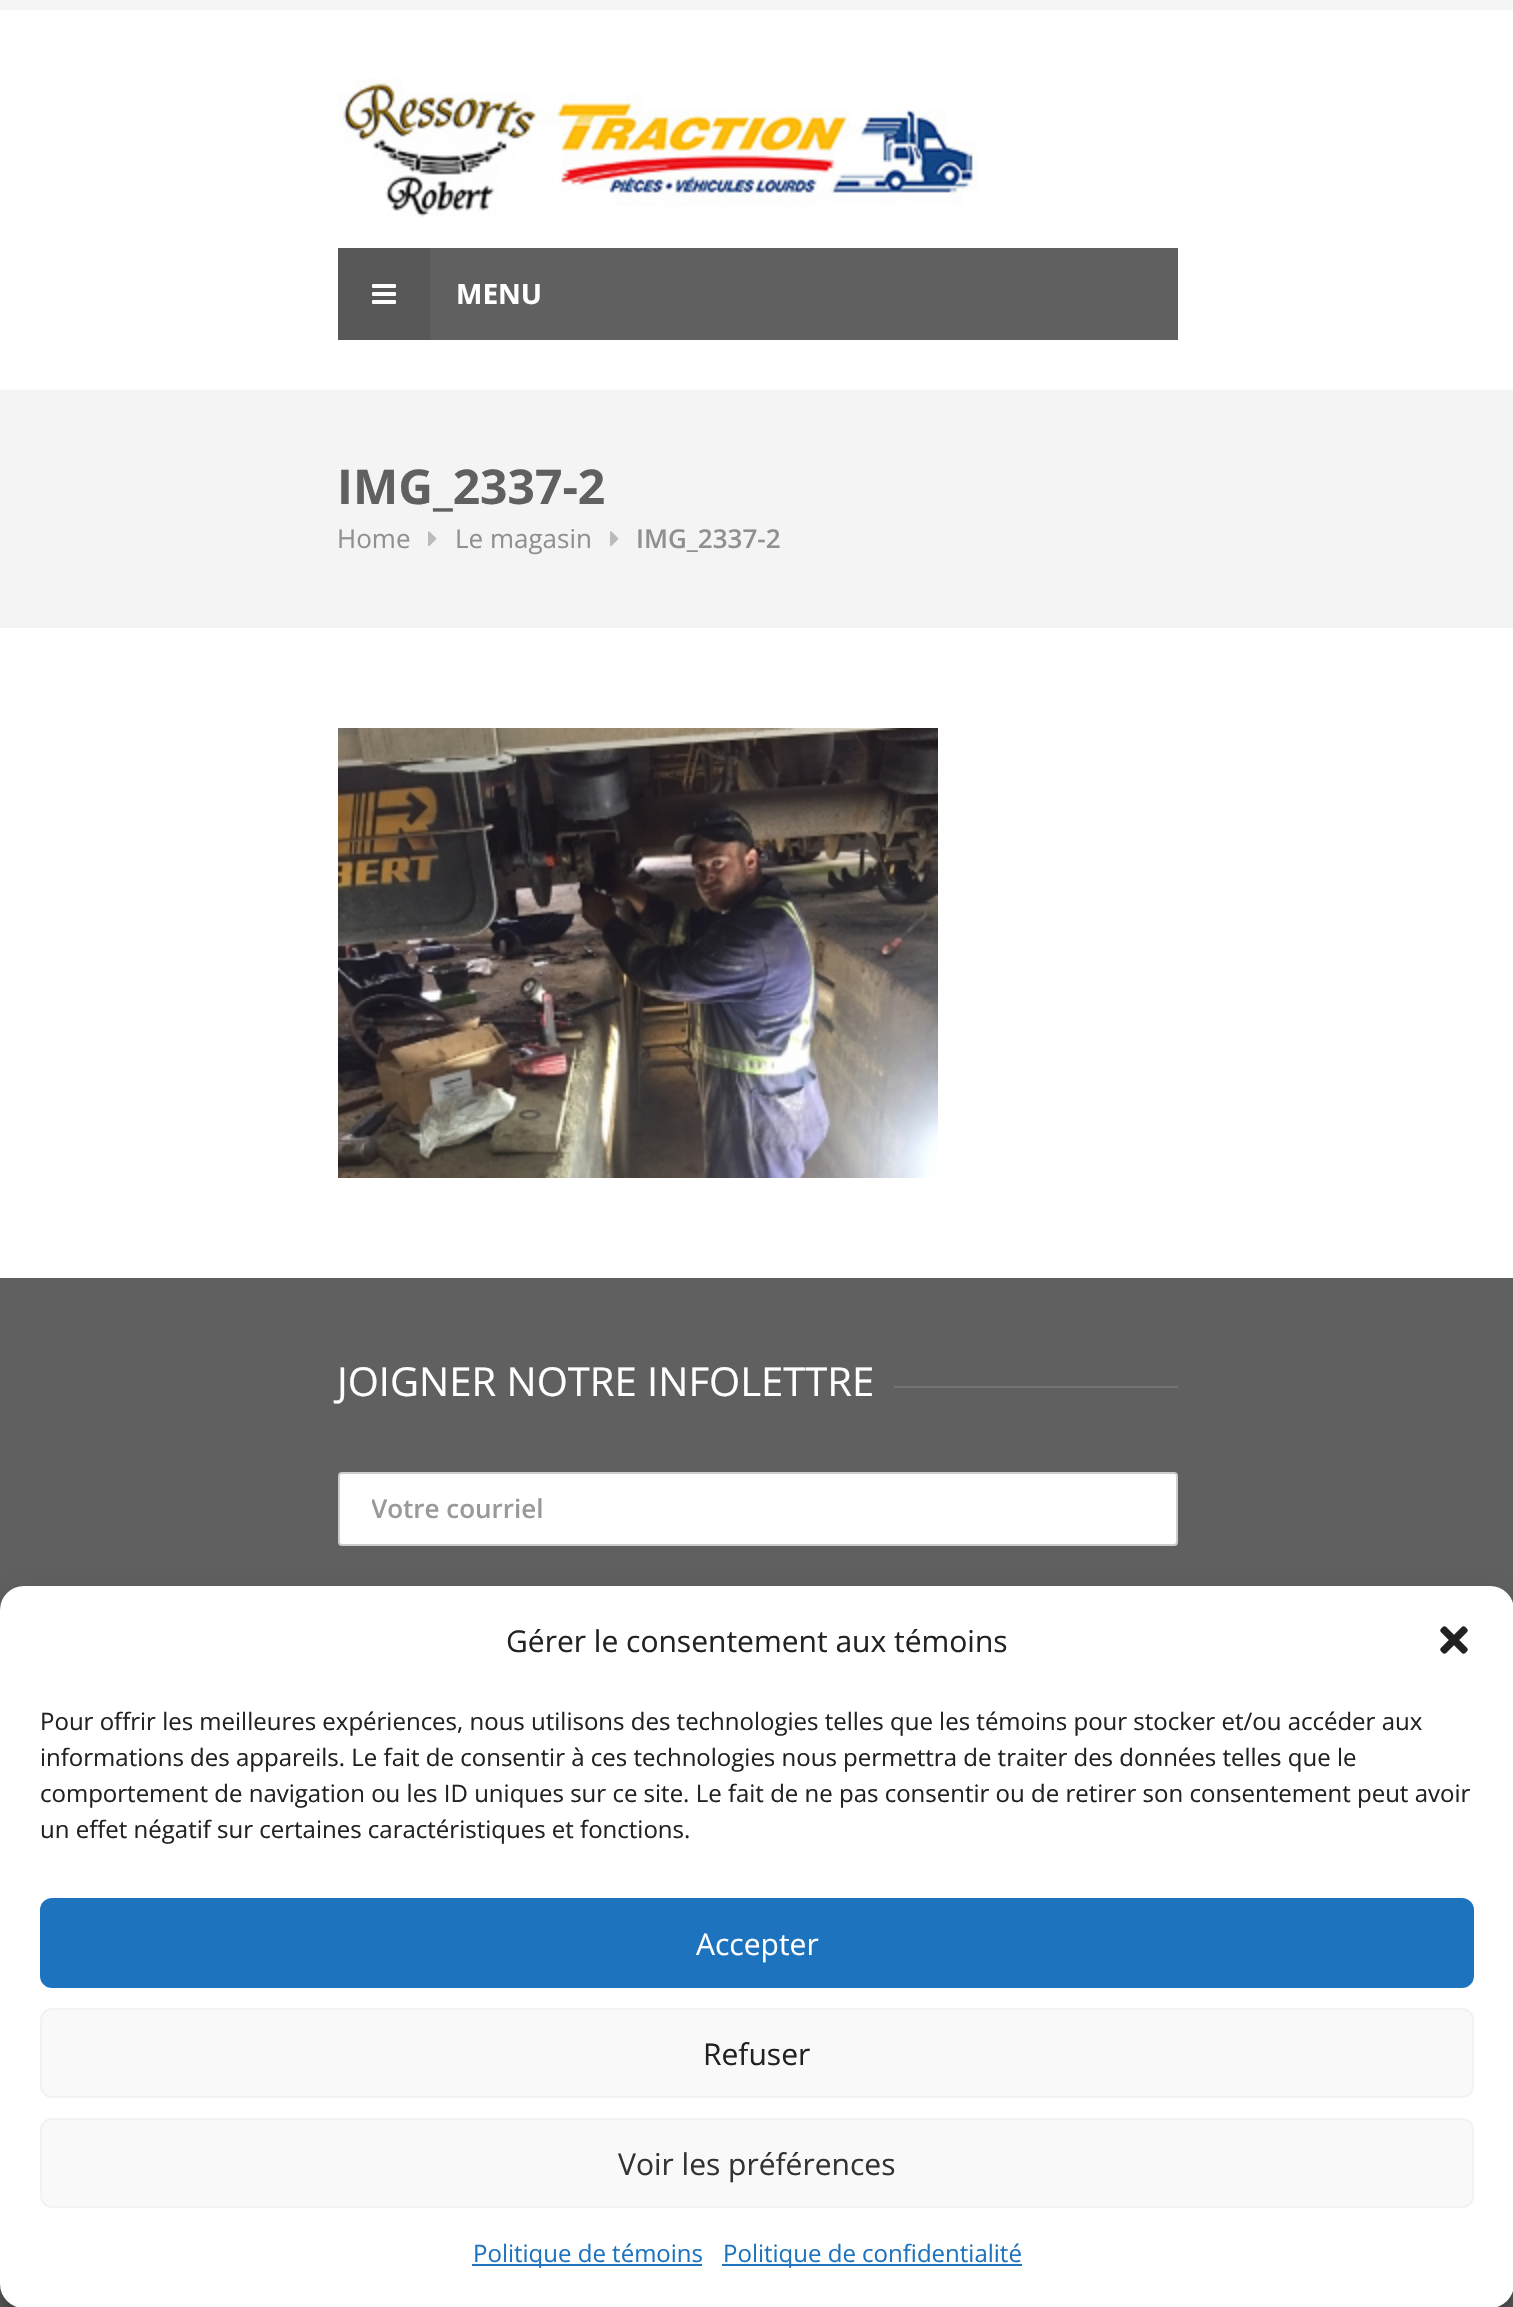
#include "include/core/SkBlurTypes.h"
#include "include/core/SkCanvas.h"
#include "include/core/SkData.h"
#include "include/core/SkFont.h"
#include "include/core/SkFontMgr.h"
#include "include/core/SkImage.h"
#include "include/core/SkMaskFilter.h"
#include "include/core/SkPaint.h"
#include "include/core/SkPathBuilder.h"
#include "include/core/SkTextBlob.h"
#include "include/effects/SkDashPathEffect.h"
#include "include/effects/SkGradientShader.h"
#include "include/utils/SkParsePath.h"

extern sk_sp<SkFontMgr> fontMgr;

static SkFont font(const char* family, int weight, float size, bool italic = false) {
    SkFontStyle style(weight, SkFontStyle::kNormal_Width,
        italic ? SkFontStyle::kItalic_Slant : SkFontStyle::kUpright_Slant);
    SkFont result(fontMgr->matchFamilyStyle(family, style), size);
    result.setSubpixel(true);
    return result;
}

static void drawLabel(SkCanvas* canvas, const char* s, float x, float y, const SkFont& font, SkColor color) {
    SkPaint ink(SkColor4f::FromColor(color));
    ink.setAntiAlias(true);
    canvas->drawString(s, x, y, font, ink);
}

static void fillRect(SkCanvas* canvas, float x, float y, float w, float h, SkColor color) {
    SkPaint ink(SkColor4f::FromColor(color));
    ink.setAntiAlias(true);
    canvas->drawRect(SkRect::MakeXYWH(x, y, w, h), ink);
}

static void fillRRect(SkCanvas* canvas, float x, float y, float w, float h, float radius, SkColor color) {
    SkPaint ink(SkColor4f::FromColor(color));
    ink.setAntiAlias(true);
    canvas->drawRoundRect(SkRect::MakeXYWH(x, y, w, h), radius, radius, ink);
}

static void drawPhoto(SkCanvas* canvas, const char* path, float x, float y, float w, float h) {
    auto image = SkImages::DeferredFromEncodedData(SkData::MakeFromFileName(path));
    canvas->drawImageRect(image, SkRect::MakeXYWH(x, y, w, h), SkSamplingOptions());
}

void draw(SkCanvas* canvas) {
    SkPaint paint;
    paint.setAntiAlias(true);
    canvas->clear(0xFFFFFFFF);
    fillRect(canvas, 0, 0, 1513, 10, 0xFFF5F5F5);
    drawPhoto(canvas, "assets/img1.png", 338, 78, 640, 139);
    fillRect(canvas, 430, 248, 748, 92, 0xFF606060);
    fillRect(canvas, 338, 248, 92, 92, 0xFF585858);
    drawPhoto(canvas, "assets/img2.png", 372, 284, 24, 20);
    SkFont font1 = font("Open Sans", 700, 28);
    drawLabel(canvas, "MENU", 456, 304, font1, 0xFFFFFFFF);
    fillRect(canvas, 0, 390, 1513, 238, 0xFFF4F4F4);
    SkFont font2 = font("Open Sans", 700, 48);
    drawLabel(canvas, "IMG_2337-2", 337, 504, font2, 0xFF606060);
    SkFont font3 = font("Open Sans", 400, 26);
    drawLabel(canvas, "Home", 337, 548, font3, 0xFF909090);
    drawPhoto(canvas, "assets/img3.png", 428, 531, 9, 15);
    drawLabel(canvas, "Le magasin", 455, 548, font3, 0xFF909090);
    drawPhoto(canvas, "assets/img3.png", 610, 531, 9, 15);
    SkFont font4 = font("Open Sans", 600, 26);
    drawLabel(canvas, "IMG_2337-2", 636, 548, font4, 0xFF909090);
    drawPhoto(canvas, "assets/img4.png", 338, 728, 600, 450);
    fillRect(canvas, 0, 1278, 1513, 1029, 0xFF606060);
    SkFont font5 = font("Open Sans", 400, 40);
    drawLabel(canvas, "JOIGNER NOTRE INFOLETTRE", 337, 1396, font5, 0xFFFFFFFF);
    fillRect(canvas, 894, 1386, 284, 2, 0xFF747474);
    paint.setColor(0xFFFFFFFF);
    canvas->drawRoundRect(SkRect::MakeXYWH(339, 1473, 838, 72), 3, 3, paint);
    paint.setStroke(true);
    paint.setStrokeWidth(2);
    paint.setColor(0xFFCCCCCC);
    canvas->drawRoundRect(SkRect::MakeXYWH(339, 1473, 838, 72), 3, 3, paint);
    canvas->save();
    canvas->clipRect(SkRect::MakeXYWH(372, 1490, 772, 36));
    drawLabel(canvas, "Votre courriel", 371, 1518, font4, 0xFF999999);
    canvas->restore();
    paint.setStroke(false);
    paint.setColor(0x3B000000);
    paint.setMaskFilter(SkMaskFilter::MakeBlur(kNormal_SkBlurStyle, 6));
    canvas->drawRoundRect(SkRect::MakeXYWH(0, 1598, 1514, 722), 24, 24, paint);
    paint.setMaskFilter(nullptr);
    paint.setColor(0x30000000);
    paint.setMaskFilter(SkMaskFilter::MakeBlur(kNormal_SkBlurStyle, 20));
    canvas->drawRoundRect(SkRect::MakeXYWH(0, 1606, 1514, 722), 24, 24, paint);
    paint.setMaskFilter(nullptr);
    fillRRect(canvas, 0, 1586, 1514, 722, 24, 0xFFFFFFFF);
    SkFont font6 = font("Open Sans", 400, 30);
    drawLabel(canvas, "Gérer le consentement aux témoins", 506, 1652, font6, 0xFF222222);
    drawPhoto(canvas, "assets/img5.png", 1440, 1626, 28, 28);
    SkFont font7 = font("Open Sans", 400, 24);
    drawLabel(canvas, "Pour offrir les meilleures expériences, nous utilisons des technologies telles que les témoins pour stocker et/ou accéder aux", 40, 1730, font7, 0xFF222222);
    drawLabel(canvas, "informations des appareils. Le fait de consentir à ces technologies nous permettra de traiter des données telles que le", 40, 1766, font7, 0xFF222222);
    drawLabel(canvas, "comportement de navigation ou les ID uniques sur ce site. Le fait de ne pas consentir ou de retirer son consentement peut avoir", 40, 1802, font7, 0xFF222222);
    drawLabel(canvas, "un effet négatif sur certaines caractéristiques et fonctions.", 40, 1838, font7, 0xFF222222);
    paint.setColor(0xFF1E73BE);
    canvas->drawRoundRect(SkRect::MakeXYWH(41, 1899, 1432, 88), 11, 11, paint);
    paint.setStroke(true);
    canvas->drawRoundRect(SkRect::MakeXYWH(41, 1899, 1432, 88), 11, 11, paint);
    drawLabel(canvas, "Accepter", 696, 1955, font6, 0xFFFFFFFF);
    paint.setStroke(false);
    paint.setColor(0xFFF9F9F9);
    canvas->drawRoundRect(SkRect::MakeXYWH(41, 2009, 1432, 88), 11, 11, paint);
    paint.setStroke(true);
    paint.setColor(0xFFF2F2F2);
    canvas->drawRoundRect(SkRect::MakeXYWH(41, 2009, 1432, 88), 11, 11, paint);
    drawLabel(canvas, "Refuser", 703, 2065, font6, 0xFF222222);
    paint.setStroke(false);
    paint.setColor(0xFFF9F9F9);
    canvas->drawRoundRect(SkRect::MakeXYWH(41, 2119, 1432, 88), 11, 11, paint);
    paint.setStroke(true);
    paint.setColor(0xFFF2F2F2);
    canvas->drawRoundRect(SkRect::MakeXYWH(41, 2119, 1432, 88), 11, 11, paint);
    drawLabel(canvas, "Voir les préférences", 618, 2175, font6, 0xFF333333);
    fillRect(canvas, 472, 2264, 230, 2, 0xFF1E73BE);
    drawLabel(canvas, "Politique de témoins", 473, 2262, font7, 0xFF1E73BE);
    fillRect(canvas, 722, 2264, 300, 2, 0xFF1E73BE);
    drawLabel(canvas, "Politique de confidentialité", 723, 2262, font7, 0xFF1E73BE);
}
